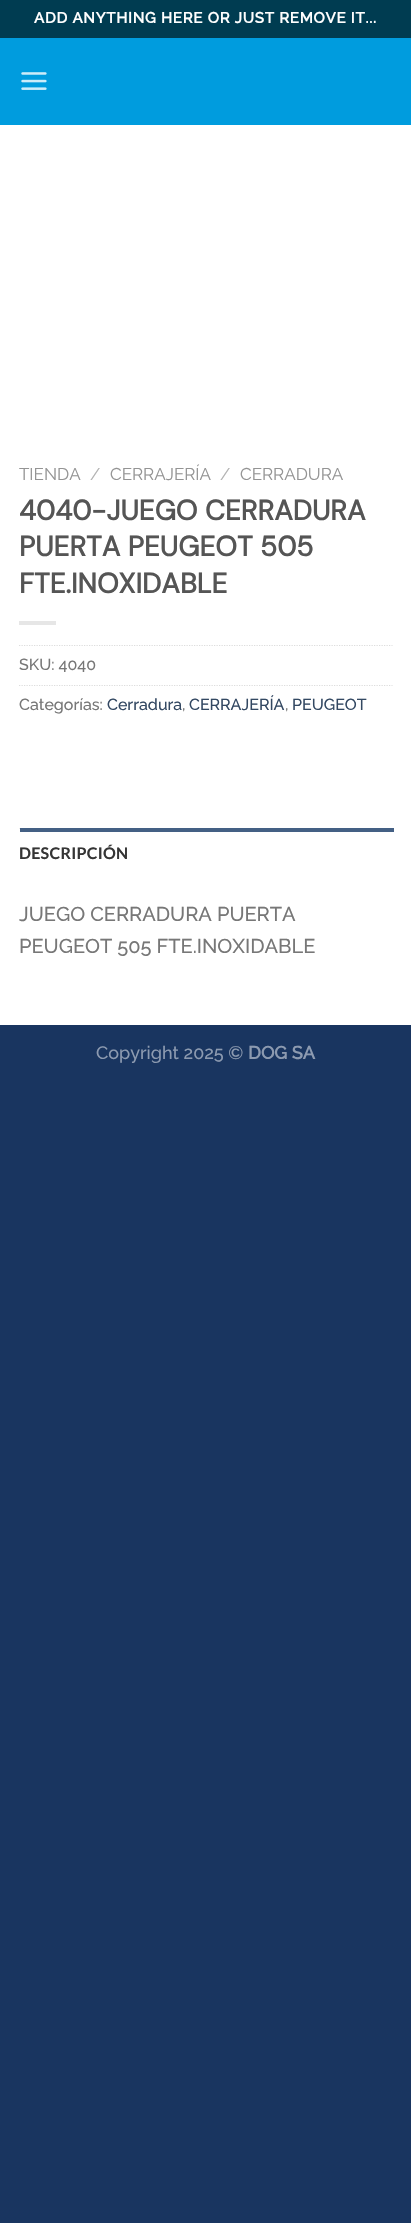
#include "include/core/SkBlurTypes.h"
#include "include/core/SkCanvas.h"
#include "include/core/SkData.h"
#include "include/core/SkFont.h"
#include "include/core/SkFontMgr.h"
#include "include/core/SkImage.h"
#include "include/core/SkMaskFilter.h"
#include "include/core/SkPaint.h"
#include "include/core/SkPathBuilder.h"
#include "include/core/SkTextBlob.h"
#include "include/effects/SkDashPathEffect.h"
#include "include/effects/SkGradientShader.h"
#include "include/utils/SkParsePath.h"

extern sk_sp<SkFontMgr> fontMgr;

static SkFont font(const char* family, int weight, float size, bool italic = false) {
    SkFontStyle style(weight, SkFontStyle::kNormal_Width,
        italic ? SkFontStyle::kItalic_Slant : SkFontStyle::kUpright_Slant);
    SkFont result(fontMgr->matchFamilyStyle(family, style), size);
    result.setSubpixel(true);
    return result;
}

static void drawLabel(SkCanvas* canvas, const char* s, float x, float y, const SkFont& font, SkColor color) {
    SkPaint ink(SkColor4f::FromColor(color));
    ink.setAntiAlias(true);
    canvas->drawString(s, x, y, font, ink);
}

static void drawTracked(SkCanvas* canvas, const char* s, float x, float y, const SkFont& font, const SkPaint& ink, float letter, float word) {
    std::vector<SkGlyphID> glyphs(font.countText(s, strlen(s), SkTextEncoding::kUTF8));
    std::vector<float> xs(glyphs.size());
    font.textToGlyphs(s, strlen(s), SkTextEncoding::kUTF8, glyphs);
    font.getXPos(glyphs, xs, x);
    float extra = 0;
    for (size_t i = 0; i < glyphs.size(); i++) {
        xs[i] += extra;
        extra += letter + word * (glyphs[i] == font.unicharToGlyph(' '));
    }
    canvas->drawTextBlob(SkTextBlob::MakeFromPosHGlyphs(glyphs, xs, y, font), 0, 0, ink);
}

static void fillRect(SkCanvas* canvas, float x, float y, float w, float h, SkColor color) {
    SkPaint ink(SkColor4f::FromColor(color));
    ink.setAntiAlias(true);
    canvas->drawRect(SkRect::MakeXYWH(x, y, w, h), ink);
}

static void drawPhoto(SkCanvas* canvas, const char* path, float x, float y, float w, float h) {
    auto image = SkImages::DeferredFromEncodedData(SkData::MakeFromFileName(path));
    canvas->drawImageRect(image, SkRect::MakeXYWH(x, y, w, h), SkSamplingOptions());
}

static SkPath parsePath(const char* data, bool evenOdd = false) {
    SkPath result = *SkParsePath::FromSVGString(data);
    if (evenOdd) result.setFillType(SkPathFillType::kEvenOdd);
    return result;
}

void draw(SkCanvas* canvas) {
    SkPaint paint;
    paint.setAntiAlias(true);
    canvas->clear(0xFF193560);
    fillRect(canvas, 0, 125, 411, 900, 0xFFFFFFFF);
    fillRect(canvas, 0, 38, 411, 87, 0xFF009CDE);
    fillRect(canvas, 0, 0, 411, 38, 0xFF003C51);
    SkFont font1 = font("Raleway", 700, 15);
    paint.setColor(0xFFFFFFFF);
    drawTracked(canvas, "ADD ANYTHING HERE OR JUST REMOVE IT...", 34, 23, font1, paint, 0.75f, 0);
    drawPhoto(canvas, "assets/img1.png", 21, 72, 26, 18);
    SkFont font2 = font("Raleway", 400, 17);
    drawLabel(canvas, "TIENDA", 19, 480, font2, 0xFF949494);
    drawLabel(canvas, "/", 90, 480, font2, 0xFFB2B2B2);
    drawLabel(canvas, "CERRAJERÍA", 110, 480, font2, 0xFF949494);
    drawLabel(canvas, "/", 220, 480, font2, 0xFFB2B2B2);
    drawLabel(canvas, "CERRADURA", 240, 480, font2, 0xFF949494);
    SkFont font3 = font("DM Sans", 700, 28);
    drawLabel(canvas, "4040-JUEGO CERRADURA", 19, 520, font3, 0xFF555555);
    drawLabel(canvas, "PUERTA PEUGEOT 505", 19, 556, font3, 0xFF555555);
    drawLabel(canvas, "FTE.INOXIDABLE", 19, 593, font3, 0xFF555555);
    fillRect(canvas, 19, 621, 37, 4, 0xFFE6E6E6);
    paint.setStroke(true);
    paint.setStrokeWidth(1.2f);
    paint.setColor(0xFFDDDDDD);
    paint.setPathEffect(SkDashPathEffect::Make({{1.25f, 1.25f}}, 0));
    canvas->drawPath(parsePath("M19 645.5H392.5"), paint);
    paint.setPathEffect(nullptr);
    SkFont font4 = font("Raleway", 500, 16);
    drawLabel(canvas, "SKU: 4040", 19, 670, font4, 0xFF777777);
    paint.setPathEffect(SkDashPathEffect::Make({{1.25f, 1.25f}}, 0));
    canvas->drawPath(parsePath("M19 685.5H392.5"), paint);
    paint.setPathEffect(nullptr);
    drawLabel(canvas, "Categorías:", 19, 710, font4, 0xFF777777);
    drawLabel(canvas, "Cerradura", 107, 710, font4, 0xFF334862);
    drawLabel(canvas, ",", 182, 710, font4, 0xFF777777);
    drawLabel(canvas, "CERRAJERÍA", 189, 710, font4, 0xFF334862);
    drawLabel(canvas, ",", 285, 710, font4, 0xFF777777);
    drawLabel(canvas, "PEUGEOT", 292, 710, font4, 0xFF334862);
    fillRect(canvas, 19, 828, 1, 1, 0xFFECECEC);
    fillRect(canvas, 20, 828, 374, 4, 0xFF446084);
    SkFont font5 = font("Lato", 700, 16);
    paint.setStroke(false);
    paint.setColor(0xFF353535);
    drawTracked(canvas, "DESCRIPCIÓN", 19, 859, font5, paint, 0.25f, 0);
    SkFont font6 = font("Raleway", 500, 20);
    drawLabel(canvas, "JUEGO CERRADURA PUERTA", 19, 921, font6, 0xFF777777);
    drawLabel(canvas, "PEUGEOT 505 FTE.INOXIDABLE", 19, 953, font6, 0xFF777777);
    SkFont font7 = font("Raleway", 500, 18);
    drawLabel(canvas, "Copyright 2025 ©", 96, 1059, font7, 0xFF8C9AB0);
    SkFont font8 = font("Raleway", 700, 18);
    drawLabel(canvas, "DOG SA", 248, 1059, font8, 0xFF8C9AB0);
}
